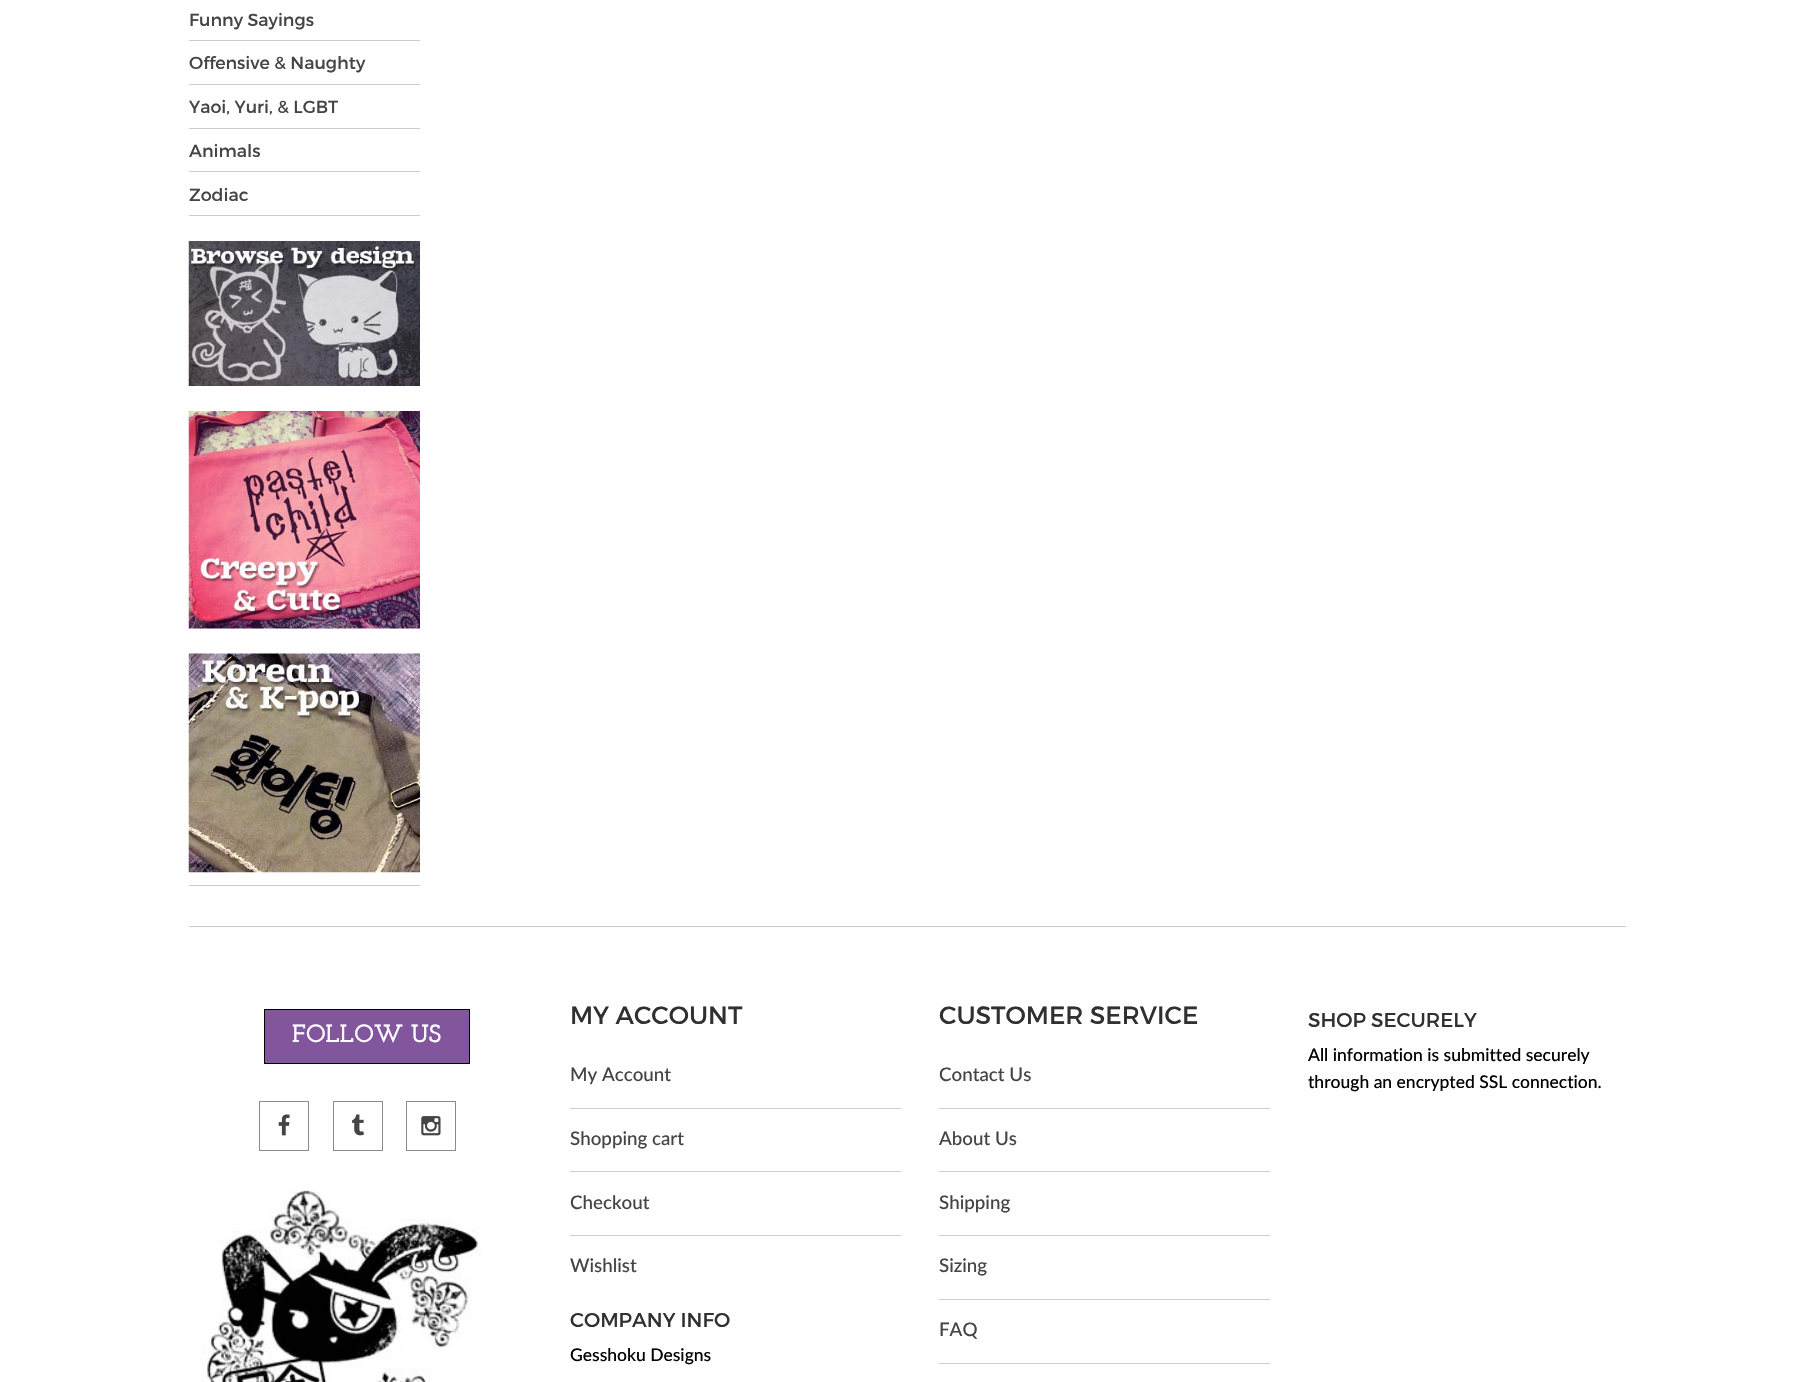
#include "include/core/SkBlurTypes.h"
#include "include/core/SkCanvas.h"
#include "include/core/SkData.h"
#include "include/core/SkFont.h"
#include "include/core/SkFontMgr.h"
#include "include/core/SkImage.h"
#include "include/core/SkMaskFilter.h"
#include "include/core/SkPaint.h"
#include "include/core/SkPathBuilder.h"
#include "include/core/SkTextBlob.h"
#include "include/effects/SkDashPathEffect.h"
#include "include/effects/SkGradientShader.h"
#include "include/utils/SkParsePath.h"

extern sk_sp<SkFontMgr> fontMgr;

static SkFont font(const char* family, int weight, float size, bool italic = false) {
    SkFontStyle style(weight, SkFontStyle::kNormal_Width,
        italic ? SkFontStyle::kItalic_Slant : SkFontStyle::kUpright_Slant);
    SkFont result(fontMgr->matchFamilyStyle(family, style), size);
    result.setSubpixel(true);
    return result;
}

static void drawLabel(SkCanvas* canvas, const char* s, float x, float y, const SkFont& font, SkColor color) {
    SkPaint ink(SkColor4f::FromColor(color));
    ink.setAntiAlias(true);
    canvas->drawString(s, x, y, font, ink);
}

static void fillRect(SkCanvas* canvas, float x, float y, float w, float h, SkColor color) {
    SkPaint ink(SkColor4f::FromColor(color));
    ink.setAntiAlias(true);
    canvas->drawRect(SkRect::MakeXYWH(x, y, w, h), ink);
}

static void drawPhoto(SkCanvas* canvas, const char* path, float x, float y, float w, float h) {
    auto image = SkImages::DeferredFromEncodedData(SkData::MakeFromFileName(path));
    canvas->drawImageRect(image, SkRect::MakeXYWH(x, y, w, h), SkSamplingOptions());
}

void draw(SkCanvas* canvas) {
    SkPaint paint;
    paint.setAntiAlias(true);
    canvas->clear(0xFFFFFFFF);
    fillRect(canvas, 189, 885, 231, 1, 0xFFCCCCCC);
    fillRect(canvas, 189, 40, 231, 1, 0xFFCCCCCC);
    SkFont font1 = font("Montserrat", 400, 17.5f);
    drawLabel(canvas, "Funny Sayings", 189, 26, font1, 0xFF454545);
    fillRect(canvas, 189, 84, 231, 1, 0xFFCCCCCC);
    drawLabel(canvas, "Offensive & Naughty", 189, 69, font1, 0xFF454545);
    fillRect(canvas, 189, 128, 231, 1, 0xFFCCCCCC);
    drawLabel(canvas, "Yaoi, Yuri, & LGBT", 189, 113, font1, 0xFF454545);
    fillRect(canvas, 189, 171, 231, 1, 0xFFCCCCCC);
    drawLabel(canvas, "Animals", 189, 157, font1, 0xFF454545);
    fillRect(canvas, 189, 215, 231, 1, 0xFFCCCCCC);
    drawLabel(canvas, "Zodiac", 189, 201, font1, 0xFF454545);
    drawPhoto(canvas, "assets/img1.png", 188, 241, 232, 145);
    drawPhoto(canvas, "assets/img2.png", 188, 411, 232, 218);
    drawPhoto(canvas, "assets/img3.png", 188, 653, 232, 220);
    fillRect(canvas, 189, 926, 1437, 1, 0xFFCCCCCC);
    paint.setColor(0xFF82569C);
    canvas->drawRect(SkRect::MakeXYWH(264.5f, 1009.5f, 205, 54), paint);
    paint.setStroke(true);
    paint.setStrokeWidth(1);
    paint.setColor(0xFF000000);
    canvas->drawRect(SkRect::MakeXYWH(264.5f, 1009.5f, 205, 54), paint);
    SkFont font2 = font("Josefin Slab", 700, 25);
    drawLabel(canvas, "FOLLOW US", 292, 1042, font2, 0xFFFFFFFF);
    paint.setColor(0xFF8A8A8A);
    canvas->drawRect(SkRect::MakeXYWH(259.5f, 1101.5f, 49, 49), paint);
    drawPhoto(canvas, "assets/img4.png", 278, 1114, 12, 22);
    canvas->drawRect(SkRect::MakeXYWH(333.5f, 1101.5f, 49, 49), paint);
    drawPhoto(canvas, "assets/img5.png", 352, 1114, 12, 22);
    canvas->drawRect(SkRect::MakeXYWH(406.5f, 1101.5f, 49, 49), paint);
    drawPhoto(canvas, "assets/img6.png", 421, 1116, 20, 20);
    drawPhoto(canvas, "assets/img7.png", 201, 1190, 280, 192);
    SkFont font3 = font("Montserrat", 400, 25);
    drawLabel(canvas, "MY ACCOUNT", 570, 1024, font3, 0xFF303030);
    fillRect(canvas, 570, 1108, 331, 1, 0xFFCFCFCF);
    SkFont font4 = font("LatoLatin", 500, 18.75f);
    drawLabel(canvas, "My Account", 570, 1081, font4, 0xFF454545);
    fillRect(canvas, 570, 1171, 331, 1, 0xFFCFCFCF);
    drawLabel(canvas, "Shopping cart", 570, 1145, font4, 0xFF454545);
    fillRect(canvas, 570, 1235, 331, 1, 0xFFCFCFCF);
    drawLabel(canvas, "Checkout", 570, 1209, font4, 0xFF454545);
    drawLabel(canvas, "Wishlist", 570, 1272, font4, 0xFF454545);
    SkFont font5 = font("Montserrat", 400, 20);
    drawLabel(canvas, "COMPANY INFO", 570, 1327, font5, 0xFF303030);
    SkFont font6 = font("LatoLatin", 500, 17.5f);
    drawLabel(canvas, "Gesshoku Designs", 570, 1361, font6, 0xFF000000);
    drawLabel(canvas, "CUSTOMER SERVICE", 939, 1024, font3, 0xFF303030);
    fillRect(canvas, 939, 1108, 331, 1, 0xFFCFCFCF);
    drawLabel(canvas, "Contact Us", 939, 1081, font4, 0xFF454545);
    fillRect(canvas, 939, 1171, 331, 1, 0xFFCFCFCF);
    drawLabel(canvas, "About Us", 939, 1145, font4, 0xFF454545);
    fillRect(canvas, 939, 1235, 331, 1, 0xFFCFCFCF);
    drawLabel(canvas, "Shipping", 939, 1209, font4, 0xFF454545);
    fillRect(canvas, 939, 1299, 331, 1, 0xFFCFCFCF);
    drawLabel(canvas, "Sizing", 939, 1272, font4, 0xFF454545);
    fillRect(canvas, 939, 1363, 331, 1, 0xFFCFCFCF);
    drawLabel(canvas, "FAQ", 939, 1336, font4, 0xFF454545);
    drawLabel(canvas, "SHOP SECURELY", 1308, 1027, font5, 0xFF303030);
    drawLabel(canvas, "All information is submitted securely", 1308, 1061, font6, 0xFF000000);
    drawLabel(canvas, "through an encrypted SSL connection.", 1308, 1088, font6, 0xFF000000);
}
